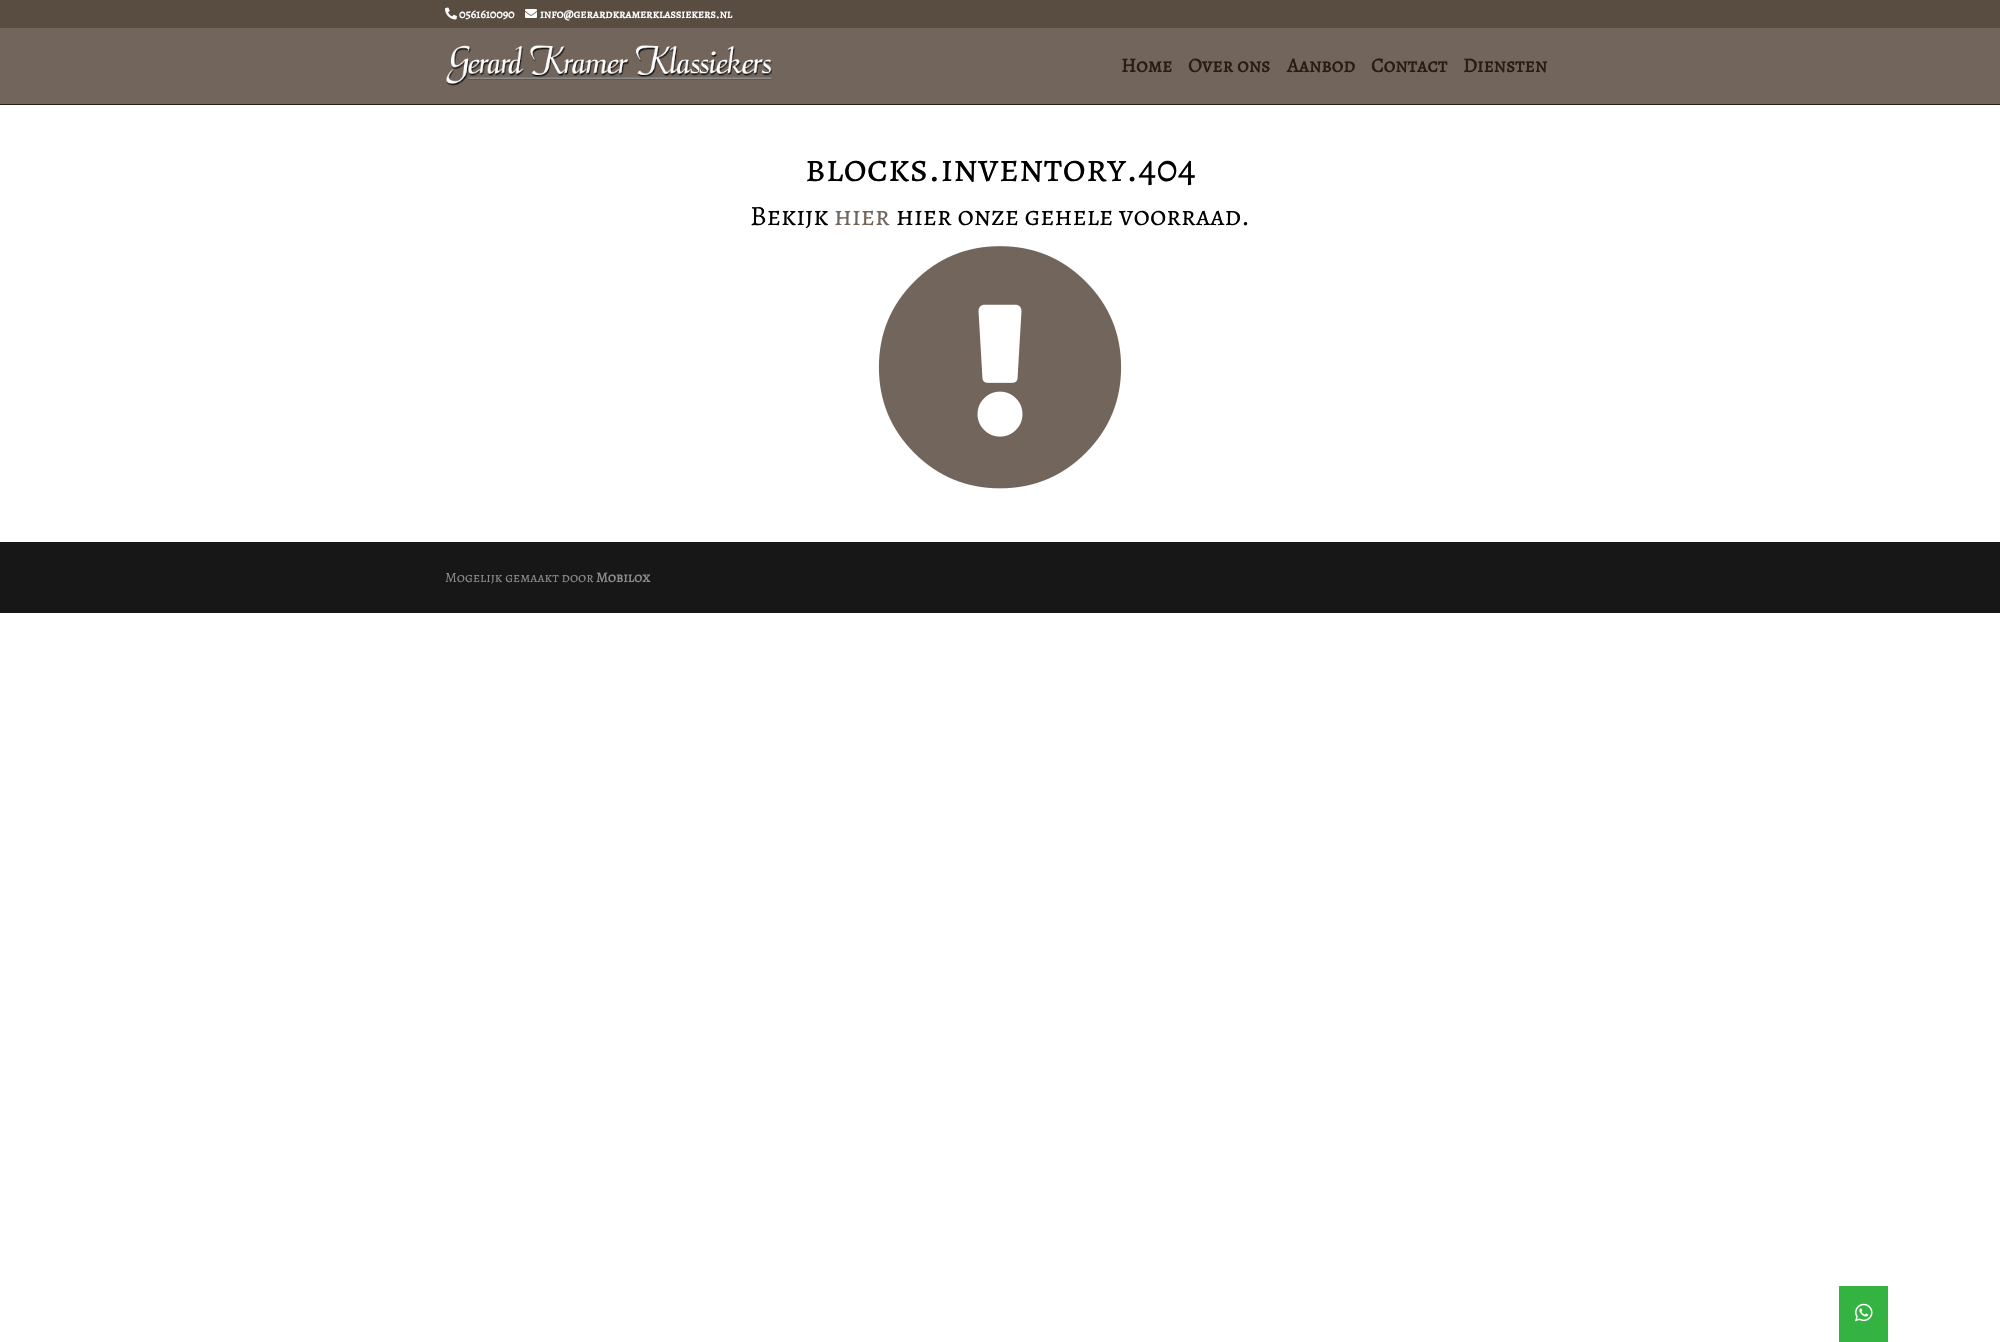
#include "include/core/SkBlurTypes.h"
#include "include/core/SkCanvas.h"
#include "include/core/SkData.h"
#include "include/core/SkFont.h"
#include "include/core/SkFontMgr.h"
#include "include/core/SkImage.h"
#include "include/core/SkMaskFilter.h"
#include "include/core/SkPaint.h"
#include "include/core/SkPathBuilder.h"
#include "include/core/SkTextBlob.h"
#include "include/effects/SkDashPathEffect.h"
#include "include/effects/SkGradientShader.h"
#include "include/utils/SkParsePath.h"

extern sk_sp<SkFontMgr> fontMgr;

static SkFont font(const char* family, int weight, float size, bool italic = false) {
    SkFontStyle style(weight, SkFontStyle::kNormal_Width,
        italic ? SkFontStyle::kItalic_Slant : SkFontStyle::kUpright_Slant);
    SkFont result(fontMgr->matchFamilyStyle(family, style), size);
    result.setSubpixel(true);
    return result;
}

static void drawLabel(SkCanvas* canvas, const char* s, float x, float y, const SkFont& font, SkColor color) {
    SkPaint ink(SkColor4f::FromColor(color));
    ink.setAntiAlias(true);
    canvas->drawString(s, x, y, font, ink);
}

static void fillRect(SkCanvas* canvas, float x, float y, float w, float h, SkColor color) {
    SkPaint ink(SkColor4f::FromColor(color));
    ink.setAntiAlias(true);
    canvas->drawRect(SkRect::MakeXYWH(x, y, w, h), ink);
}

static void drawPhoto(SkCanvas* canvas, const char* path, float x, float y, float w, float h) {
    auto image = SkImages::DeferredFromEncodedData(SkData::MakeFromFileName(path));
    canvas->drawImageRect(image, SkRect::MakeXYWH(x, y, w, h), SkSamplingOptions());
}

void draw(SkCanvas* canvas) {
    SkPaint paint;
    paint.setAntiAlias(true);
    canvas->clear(0xFFFFFFFF);
    fillRect(canvas, 0, 0, 2000, 28, 0xFF594D41);
    drawPhoto(canvas, "assets/img1.png", 445, 7, 12, 13);
    SkFont font1 = font("Alegreya SC", 700, 12);
    drawLabel(canvas, "0561610090", 459, 18, font1, 0xFFFFFFFF);
    drawPhoto(canvas, "assets/img2.png", 525, 9, 12, 9);
    drawLabel(canvas, "info@gerardkramerklassiekers.nl", 540, 18, font1, 0xFFFFFFFF);
    fillRect(canvas, 0, 28, 2000, 76, 0xFF72655C);
    fillRect(canvas, 0, 104, 2000, 1, 0xFF291D13);
    drawPhoto(canvas, "assets/img3.png", 446, 45, 327, 41);
    SkFont font2 = font("Alegreya SC", 700, 20);
    drawLabel(canvas, "Home", 1121, 72, font2, 0xFF291D13);
    drawLabel(canvas, "Over ons", 1188, 72, font2, 0xFF291D13);
    drawLabel(canvas, "Aanbod", 1287, 72, font2, 0xFF291D13);
    drawLabel(canvas, "Contact", 1371, 72, font2, 0xFF291D13);
    drawLabel(canvas, "Diensten", 1463, 72, font2, 0xFF291D13);
    SkFont font3 = font("Alegreya SC", 400, 40);
    drawLabel(canvas, "blocks.inventory.404", 805, 181, font3, 0xFF000000);
    SkFont font4 = font("Alegreya SC", 400, 28);
    drawLabel(canvas, "Bekijk", 750, 225, font4, 0xFF000000);
    drawLabel(canvas, "hier", 834, 225, font4, 0xFF72655C);
    drawLabel(canvas, "hier onze gehele voorraad.", 896, 225, font4, 0xFF000000);
    drawPhoto(canvas, "assets/img4.png", 878, 246, 244, 243);
    fillRect(canvas, 0, 542, 2000, 71, 0xFF171717);
    SkFont font5 = font("Alegreya SC", 400, 14);
    drawLabel(canvas, "Mogelijk gemaakt door", 445, 582, font5, 0xFF8B8B8B);
    SkFont font6 = font("Alegreya SC", 700, 14);
    drawLabel(canvas, "Mobilox", 596, 582, font6, 0xFF8B8B8B);
    fillRect(canvas, 1839, 1286, 49, 56, 0xFF34B343);
    drawPhoto(canvas, "assets/img5.png", 1855, 1303, 18, 19);
}
